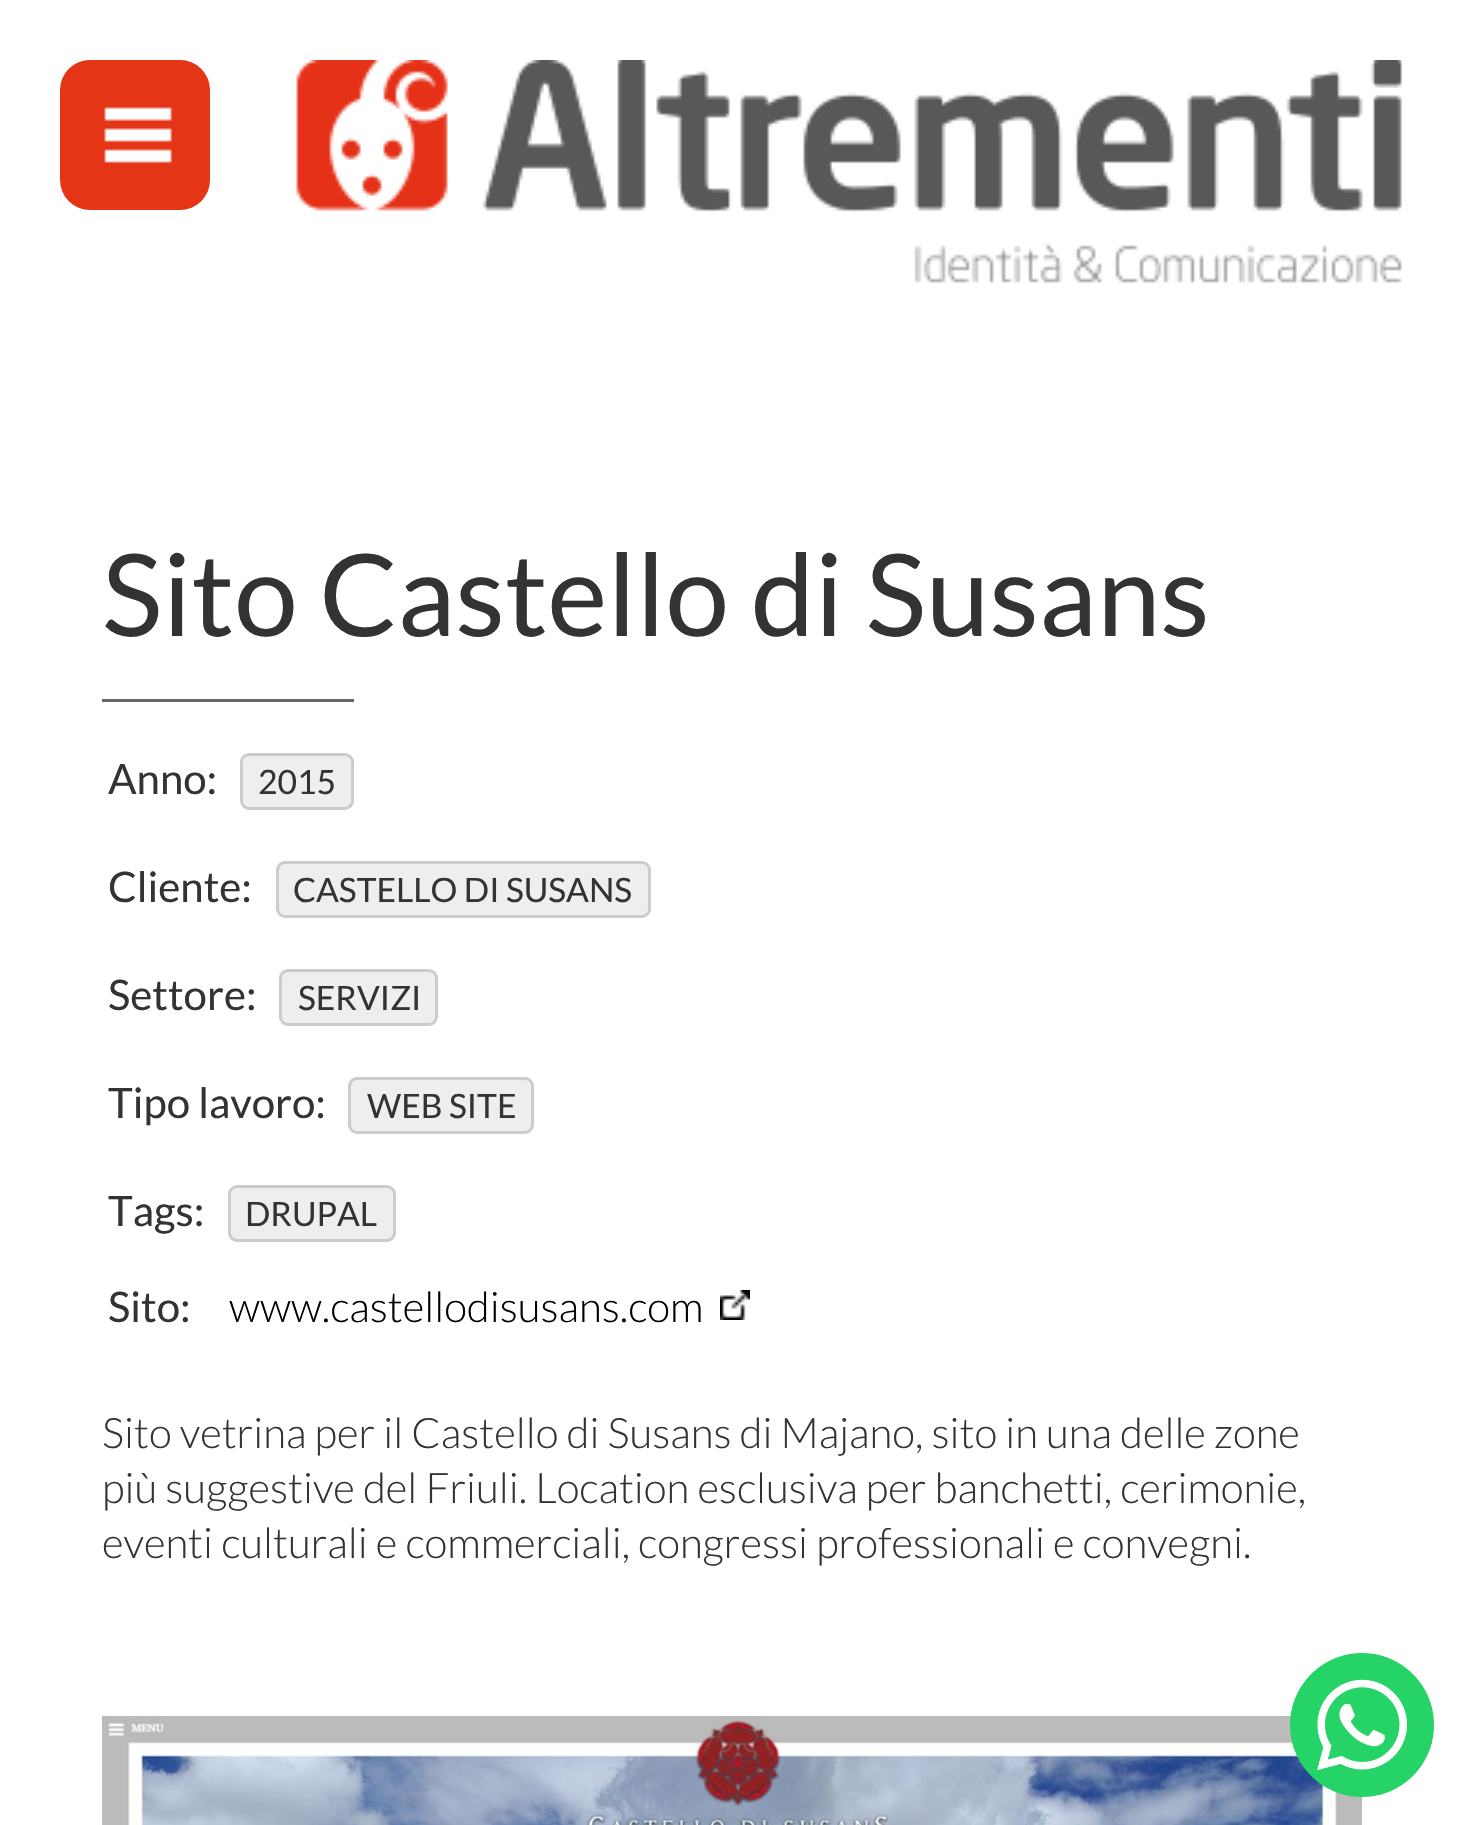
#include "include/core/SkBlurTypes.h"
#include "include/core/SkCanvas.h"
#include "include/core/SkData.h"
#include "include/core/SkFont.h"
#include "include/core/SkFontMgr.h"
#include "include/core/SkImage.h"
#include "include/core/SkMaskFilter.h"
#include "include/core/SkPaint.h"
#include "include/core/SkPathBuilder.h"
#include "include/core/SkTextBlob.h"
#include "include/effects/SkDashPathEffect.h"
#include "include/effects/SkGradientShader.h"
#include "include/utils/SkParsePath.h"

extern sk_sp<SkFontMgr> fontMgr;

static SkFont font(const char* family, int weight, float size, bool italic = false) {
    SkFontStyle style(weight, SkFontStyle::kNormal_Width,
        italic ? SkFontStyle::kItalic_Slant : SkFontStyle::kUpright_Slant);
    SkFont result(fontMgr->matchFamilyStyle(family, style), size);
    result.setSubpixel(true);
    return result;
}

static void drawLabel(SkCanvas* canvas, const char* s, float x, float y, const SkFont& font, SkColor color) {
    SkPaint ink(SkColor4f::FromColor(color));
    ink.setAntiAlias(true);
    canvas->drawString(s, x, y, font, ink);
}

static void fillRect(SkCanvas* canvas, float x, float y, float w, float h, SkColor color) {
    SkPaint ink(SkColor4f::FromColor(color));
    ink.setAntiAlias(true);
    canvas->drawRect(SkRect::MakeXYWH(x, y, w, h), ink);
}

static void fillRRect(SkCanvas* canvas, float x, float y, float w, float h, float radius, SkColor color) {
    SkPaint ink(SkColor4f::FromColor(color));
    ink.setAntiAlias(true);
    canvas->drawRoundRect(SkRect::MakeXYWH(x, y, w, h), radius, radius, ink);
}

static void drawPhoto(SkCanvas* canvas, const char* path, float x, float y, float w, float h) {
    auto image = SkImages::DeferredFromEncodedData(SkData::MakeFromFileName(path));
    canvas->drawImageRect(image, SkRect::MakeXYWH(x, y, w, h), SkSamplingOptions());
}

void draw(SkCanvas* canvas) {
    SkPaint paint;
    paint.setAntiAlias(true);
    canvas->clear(0xFFFFFFFF);
    fillRRect(canvas, 60, 60, 150, 150, 30, 0xFFE53517);
    drawPhoto(canvas, "assets/img1.png", 104, 107, 68, 56);
    drawPhoto(canvas, "assets/img2.png", 296, 60, 1106, 223);
    SkFont font1 = font("Lato", 400, 114);
    drawLabel(canvas, "Sito Castello di Susans", 102, 636, font1, 0xFF333333);
    fillRect(canvas, 102, 699, 252, 3, 0xFF666666);
    SkFont font2 = font("Lato", 400, 42);
    drawLabel(canvas, "Anno:", 108, 794, font2, 0xFF333333);
    paint.setColor(0xFFEEEEEE);
    canvas->drawRoundRect(SkRect::MakeXYWH(241.5f, 754.5f, 111, 54), 7.5f, 7.5f, paint);
    paint.setStroke(true);
    paint.setStrokeWidth(3);
    paint.setColor(0xFFCCCCCC);
    canvas->drawRoundRect(SkRect::MakeXYWH(241.5f, 754.5f, 111, 54), 7.5f, 7.5f, paint);
    SkFont font3 = font("Lato", 400, 33.6f);
    drawLabel(canvas, "2015", 258, 794, font3, 0xFF333333);
    drawLabel(canvas, "Cliente:", 108, 902, font2, 0xFF333333);
    paint.setStroke(false);
    paint.setColor(0xFFEEEEEE);
    canvas->drawRoundRect(SkRect::MakeXYWH(277.5f, 862.5f, 372, 54), 7.5f, 7.5f, paint);
    paint.setStroke(true);
    paint.setColor(0xFFCCCCCC);
    canvas->drawRoundRect(SkRect::MakeXYWH(277.5f, 862.5f, 372, 54), 7.5f, 7.5f, paint);
    drawLabel(canvas, "CASTELLO DI SUSANS", 293, 902, font3, 0xFF333333);
    drawLabel(canvas, "Settore:", 108, 1010, font2, 0xFF333333);
    paint.setStroke(false);
    paint.setColor(0xFFEEEEEE);
    canvas->drawRoundRect(SkRect::MakeXYWH(280.5f, 970.5f, 156, 54), 7.5f, 7.5f, paint);
    paint.setStroke(true);
    paint.setColor(0xFFCCCCCC);
    canvas->drawRoundRect(SkRect::MakeXYWH(280.5f, 970.5f, 156, 54), 7.5f, 7.5f, paint);
    drawLabel(canvas, "SERVIZI", 298, 1010, font3, 0xFF333333);
    drawLabel(canvas, "Tipo lavoro:", 108, 1118, font2, 0xFF333333);
    paint.setStroke(false);
    paint.setColor(0xFFEEEEEE);
    canvas->drawRoundRect(SkRect::MakeXYWH(349.5f, 1078.5f, 183, 54), 7.5f, 7.5f, paint);
    paint.setStroke(true);
    paint.setColor(0xFFCCCCCC);
    canvas->drawRoundRect(SkRect::MakeXYWH(349.5f, 1078.5f, 183, 54), 7.5f, 7.5f, paint);
    drawLabel(canvas, "WEB SITE", 367, 1118, font3, 0xFF333333);
    drawLabel(canvas, "Tags:", 108, 1226, font2, 0xFF333333);
    paint.setStroke(false);
    paint.setColor(0xFFEEEEEE);
    canvas->drawRoundRect(SkRect::MakeXYWH(229.5f, 1186.5f, 165, 54), 7.5f, 7.5f, paint);
    paint.setStroke(true);
    paint.setColor(0xFFCCCCCC);
    canvas->drawRoundRect(SkRect::MakeXYWH(229.5f, 1186.5f, 165, 54), 7.5f, 7.5f, paint);
    drawLabel(canvas, "DRUPAL", 245, 1226, font3, 0xFF333333);
    drawLabel(canvas, "Sito:", 108, 1322, font2, 0xFF333333);
    SkFont font4 = font("Lato", 300, 42);
    drawLabel(canvas, "www.castellodisusans.com", 229, 1322, font4, 0xFF000000);
    drawPhoto(canvas, "assets/img3.png", 720, 1290, 30, 30);
    drawLabel(canvas, "Sito vetrina per il Castello di Susans di Majano, sito in una delle zone", 102, 1448, font4, 0xFF333333);
    drawLabel(canvas, "più suggestive del Friuli. Location esclusiva per banchetti, cerimonie,", 102, 1503, font4, 0xFF333333);
    drawLabel(canvas, "eventi culturali e commerciali, congressi professionali e convegni.", 102, 1558, font4, 0xFF333333);
    drawPhoto(canvas, "assets/img4.png", 102, 1716, 1260, 109);
    drawPhoto(canvas, "assets/img5.png", 1290, 1653, 144, 144);
}
